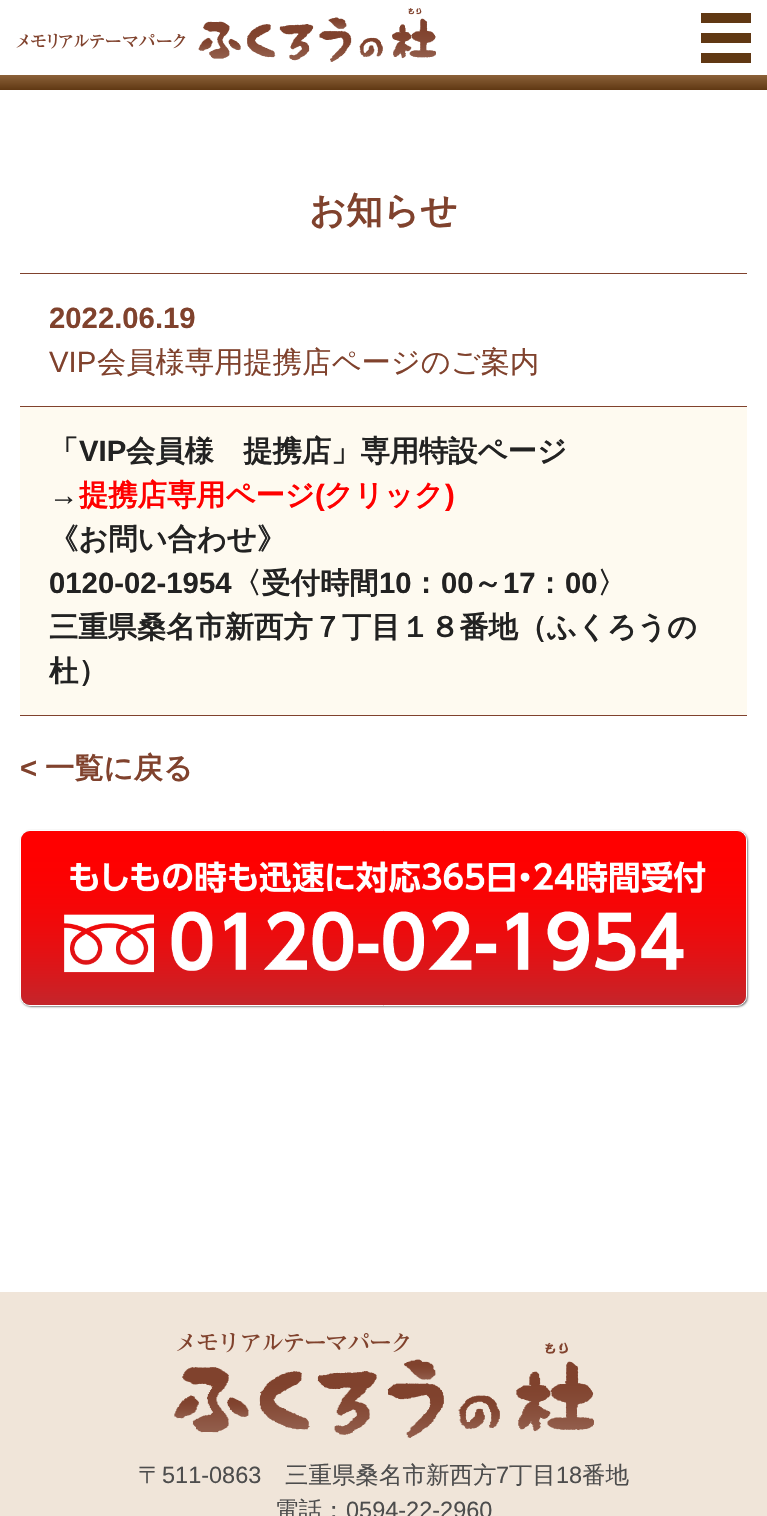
#include "include/core/SkBlurTypes.h"
#include "include/core/SkCanvas.h"
#include "include/core/SkData.h"
#include "include/core/SkFont.h"
#include "include/core/SkFontMgr.h"
#include "include/core/SkImage.h"
#include "include/core/SkMaskFilter.h"
#include "include/core/SkPaint.h"
#include "include/core/SkPathBuilder.h"
#include "include/core/SkTextBlob.h"
#include "include/effects/SkDashPathEffect.h"
#include "include/effects/SkGradientShader.h"
#include "include/utils/SkParsePath.h"

extern sk_sp<SkFontMgr> fontMgr;

static SkFont font(const char* family, int weight, float size, bool italic = false) {
    SkFontStyle style(weight, SkFontStyle::kNormal_Width,
        italic ? SkFontStyle::kItalic_Slant : SkFontStyle::kUpright_Slant);
    SkFont result(fontMgr->matchFamilyStyle(family, style), size);
    result.setSubpixel(true);
    return result;
}

static void drawLabel(SkCanvas* canvas, const char* s, float x, float y, const SkFont& font, SkColor color) {
    SkPaint ink(SkColor4f::FromColor(color));
    ink.setAntiAlias(true);
    canvas->drawString(s, x, y, font, ink);
}

static void fillRect(SkCanvas* canvas, float x, float y, float w, float h, SkColor color) {
    SkPaint ink(SkColor4f::FromColor(color));
    ink.setAntiAlias(true);
    canvas->drawRect(SkRect::MakeXYWH(x, y, w, h), ink);
}

static void drawPhoto(SkCanvas* canvas, const char* path, float x, float y, float w, float h) {
    auto image = SkImages::DeferredFromEncodedData(SkData::MakeFromFileName(path));
    canvas->drawImageRect(image, SkRect::MakeXYWH(x, y, w, h), SkSamplingOptions());
}

void draw(SkCanvas* canvas) {
    SkPaint paint;
    paint.setAntiAlias(true);
    canvas->clear(0xFFFFFFFF);
    {
        const SkColor colors[] = {0xFF603813, 0xFF8C6239, 0xFFFFFFFF};
        const float stops[] = {0, 0.17f, 0.17f};
        const SkPoint ends[] = {{384, 90}, {384, 0}};
        paint.setShader(SkGradientShader::MakeLinear(ends, colors, stops, 3, SkTileMode::kClamp));
        paint.setAlpha(255);
    }
    canvas->drawRect(SkRect::MakeXYWH(0, 75, 767, 15), paint);
    drawPhoto(canvas, "assets/img1.png", 16, 8, 420, 54);
    fillRect(canvas, 701, 13, 50, 10, 0xFF603813);
    fillRect(canvas, 701, 33, 50, 10, 0xFF603813);
    fillRect(canvas, 701, 53, 50, 10, 0xFF603813);
    SkFont font1 = font("WenQuanYi Zen Hei", 700, 36.5f);
    drawLabel(canvas, "お知らせ", 309, 223, font1, 0xFF80422D);
    fillRect(canvas, 20, 273, 727, 1, 0xFF80422D);
    fillRect(canvas, 20, 406, 727, 1, 0xFF80422D);
    SkFont font2 = font("Liberation Sans", 700, 29.3f);
    drawLabel(canvas, "2022.06.19", 49, 328, font2, 0xFF80422D);
    SkFont font3 = font("Liberation Sans", 400, 29.3f);
    drawLabel(canvas, "VIP", 49, 372, font3, 0xFF80422D);
    SkFont font4 = font("WenQuanYi Zen Hei", 500, 29.3f);
    drawLabel(canvas, "会員様専用提携店ページのご案内", 97, 372, font4, 0xFF80422D);
    fillRect(canvas, 20, 407, 727, 308, 0xFFFEFAF0);
    fillRect(canvas, 20, 715, 727, 1, 0xFF80422D);
    SkFont font5 = font("WenQuanYi Zen Hei", 700, 29.3f);
    drawLabel(canvas, "「", 49, 461, font5, 0xFF222222);
    drawLabel(canvas, "VIP", 79, 461, font2, 0xFF222222);
    drawLabel(canvas, "会員様　提携店」専用特設ページ", 126, 461, font5, 0xFF222222);
    drawLabel(canvas, "→", 49, 505, font2, 0xFF222222);
    drawLabel(canvas, "提携店専用ページ", 79, 505, font5, 0xFFFF0000);
    drawLabel(canvas, "(", 315, 505, font2, 0xFFFF0000);
    drawLabel(canvas, "クリック", 324, 505, font5, 0xFFFF0000);
    drawLabel(canvas, ")", 445, 505, font2, 0xFFFF0000);
    drawLabel(canvas, "《お問い合わせ》", 49, 549, font5, 0xFF222222);
    drawLabel(canvas, "0120-02-1954", 49, 593, font2, 0xFF222222);
    drawLabel(canvas, "〈受付時間", 232, 593, font5, 0xFF222222);
    drawLabel(canvas, "10", 379, 593, font2, 0xFF222222);
    drawLabel(canvas, "：", 411, 593, font5, 0xFF222222);
    drawLabel(canvas, "00", 441, 593, font2, 0xFF222222);
    drawLabel(canvas, "～", 473, 593, font5, 0xFF222222);
    drawLabel(canvas, "17", 503, 593, font2, 0xFF222222);
    drawLabel(canvas, "：", 535, 593, font5, 0xFF222222);
    drawLabel(canvas, "00", 565, 593, font2, 0xFF222222);
    drawLabel(canvas, "〉", 597, 593, font5, 0xFF222222);
    drawLabel(canvas, "三重県桑名市新西方７丁目１８番地（ふくろうの", 49, 637, font5, 0xFF222222);
    drawLabel(canvas, "杜）", 49, 681, font5, 0xFF222222);
    drawLabel(canvas, "<", 20, 778, font2, 0xFF80422D);
    drawLabel(canvas, "一覧に戻る", 45, 778, font5, 0xFF80422D);
    paint.setShader(nullptr);
    paint.setColor(0x80000000);
    paint.setMaskFilter(SkMaskFilter::MakeBlur(kNormal_SkBlurStyle, 1));
    canvas->drawRoundRect(SkRect::MakeXYWH(21, 831, 727, 176), 10, 10, paint);
    paint.setMaskFilter(nullptr);
    paint.setStroke(true);
    paint.setStrokeWidth(1);
    paint.setColor(0xFFFFFFFF);
    canvas->drawRoundRect(SkRect::MakeXYWH(20.5f, 830.5f, 726, 175), 9.5f, 9.5f, paint);
    drawPhoto(canvas, "assets/img2.png", 21, 831, 725, 174);
    fillRect(canvas, 0, 1292, 767, 224, 0xFFF0E5D9);
    drawPhoto(canvas, "assets/img3.png", 174, 1333, 420, 105);
    SkFont font6 = font("WenQuanYi Zen Hei", 500, 23.5f);
    drawLabel(canvas, "〒", 138, 1483, font6, 0xFF4D4D4D);
    SkFont font7 = font("Liberation Sans", 400, 23.5f);
    drawLabel(canvas, "511-0863", 162, 1483, font7, 0xFF4D4D4D);
    drawLabel(canvas, "三重県桑名市新西方", 285, 1483, font6, 0xFF4D4D4D);
    drawLabel(canvas, "7", 496, 1483, font7, 0xFF4D4D4D);
    drawLabel(canvas, "丁目", 509, 1483, font6, 0xFF4D4D4D);
    drawLabel(canvas, "18", 556, 1483, font7, 0xFF4D4D4D);
    drawLabel(canvas, "番地", 582, 1483, font6, 0xFF4D4D4D);
    drawLabel(canvas, "電話：", 275, 1518, font6, 0xFF4D4D4D);
    drawLabel(canvas, "0594-22-2960", 346, 1518, font7, 0xFF4D4D4D);
}
